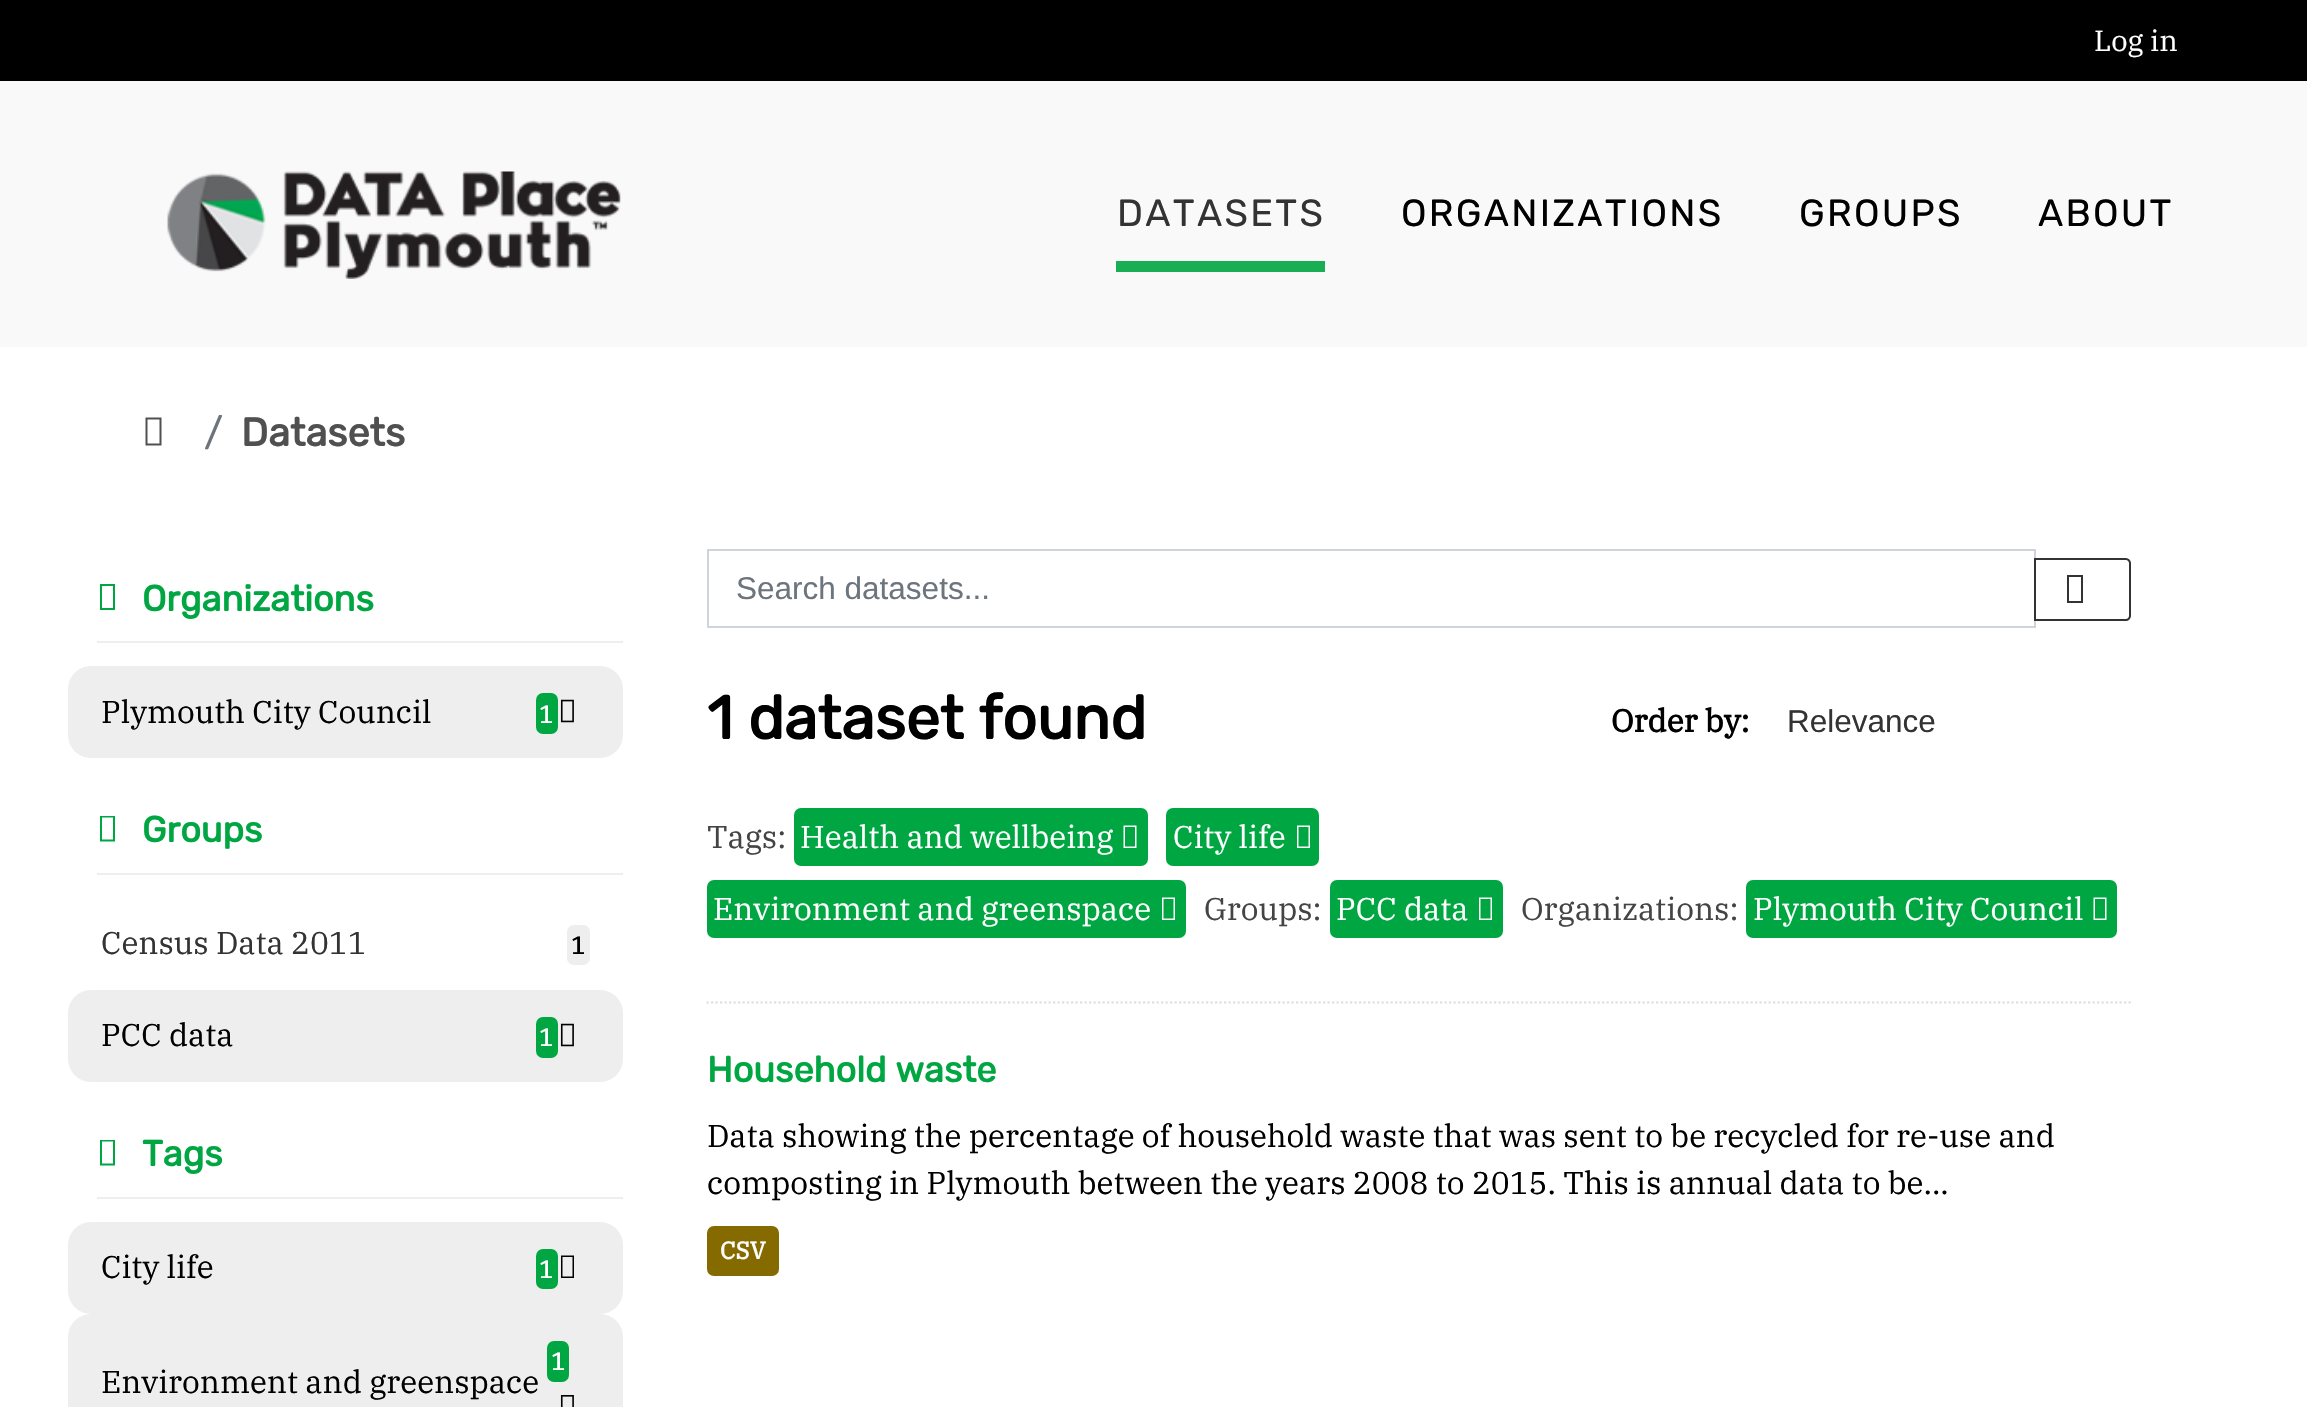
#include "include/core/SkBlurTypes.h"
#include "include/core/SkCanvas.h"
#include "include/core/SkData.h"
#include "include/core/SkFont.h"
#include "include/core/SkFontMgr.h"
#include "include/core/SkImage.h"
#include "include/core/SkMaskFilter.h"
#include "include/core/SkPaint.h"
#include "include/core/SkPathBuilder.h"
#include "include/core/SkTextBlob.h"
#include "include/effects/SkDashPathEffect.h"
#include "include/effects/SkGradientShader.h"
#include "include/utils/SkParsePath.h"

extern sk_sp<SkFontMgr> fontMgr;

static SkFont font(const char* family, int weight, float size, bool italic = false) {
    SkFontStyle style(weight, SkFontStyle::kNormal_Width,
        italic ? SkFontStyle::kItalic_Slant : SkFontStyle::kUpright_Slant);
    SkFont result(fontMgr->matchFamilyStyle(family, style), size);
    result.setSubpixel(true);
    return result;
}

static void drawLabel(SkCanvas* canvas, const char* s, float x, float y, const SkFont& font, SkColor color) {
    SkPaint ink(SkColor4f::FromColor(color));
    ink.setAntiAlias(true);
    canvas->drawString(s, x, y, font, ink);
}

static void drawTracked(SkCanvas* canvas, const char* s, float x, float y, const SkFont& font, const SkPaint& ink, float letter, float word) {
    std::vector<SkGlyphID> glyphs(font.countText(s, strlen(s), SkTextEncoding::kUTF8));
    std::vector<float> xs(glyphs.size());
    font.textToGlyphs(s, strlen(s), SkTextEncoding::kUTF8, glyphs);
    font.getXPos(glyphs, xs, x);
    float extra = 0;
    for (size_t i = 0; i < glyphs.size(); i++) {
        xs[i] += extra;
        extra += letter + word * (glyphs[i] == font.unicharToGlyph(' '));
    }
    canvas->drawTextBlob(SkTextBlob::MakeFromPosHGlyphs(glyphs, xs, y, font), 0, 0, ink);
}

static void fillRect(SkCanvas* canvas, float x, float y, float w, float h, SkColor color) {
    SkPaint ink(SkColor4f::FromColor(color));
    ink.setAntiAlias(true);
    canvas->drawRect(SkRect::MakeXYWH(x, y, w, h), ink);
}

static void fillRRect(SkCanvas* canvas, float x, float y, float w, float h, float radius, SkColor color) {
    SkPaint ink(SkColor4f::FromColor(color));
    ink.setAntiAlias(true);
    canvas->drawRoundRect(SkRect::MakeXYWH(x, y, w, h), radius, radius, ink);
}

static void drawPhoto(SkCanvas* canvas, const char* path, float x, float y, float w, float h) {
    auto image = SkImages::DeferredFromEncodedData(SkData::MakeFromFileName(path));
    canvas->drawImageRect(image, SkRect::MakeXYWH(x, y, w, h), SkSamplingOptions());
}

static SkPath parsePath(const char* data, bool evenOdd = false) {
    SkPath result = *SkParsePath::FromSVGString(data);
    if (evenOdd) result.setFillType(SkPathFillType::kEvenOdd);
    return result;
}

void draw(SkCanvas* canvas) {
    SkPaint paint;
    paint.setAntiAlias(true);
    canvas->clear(0xFFFFFFFF);
    fillRect(canvas, 0, 0, 2307, 81, 0xFF000000);
    SkFont font1 = font("IBM Plex Serif", 400, 29);
    drawLabel(canvas, "Log in", 2094, 51, font1, 0xFFFFFFFF);
    fillRect(canvas, 0, 81, 2307, 266, 0xFFF9F9F9);
    drawPhoto(canvas, "assets/img1.png", 167, 171, 454, 108);
    SkFont font2 = font("Rubik", 300, 37.75f);
    paint.setColor(0xFF333333);
    drawTracked(canvas, "DATASETS", 1117, 226, font2, paint, 2.25f, 0);
    fillRect(canvas, 1116, 261, 209, 11, 0xFF19AE53);
    paint.setColor(0xFF000000);
    drawTracked(canvas, "ORGANIZATIONS", 1401, 226, font2, paint, 2.25f, 0);
    drawTracked(canvas, "GROUPS", 1799, 226, font2, paint, 2.25f, 0);
    drawTracked(canvas, "ABOUT", 2038, 226, font2, paint, 2.25f, 0);
    paint.setColor(0xFF505050);
    canvas->drawPath(parsePath("M145.5 445.5V417.5H161.5V445.5ZM147.5 443.5H159.5V419.5H147.5Z"), paint);
    SkFont font3 = font("Rubik", 300, 39.5f);
    drawLabel(canvas, "/", 204, 446, font3, 0xFF6C757D);
    SkFont font4 = font("Rubik", 700, 39.5f);
    drawLabel(canvas, "Datasets", 241, 446, font4, 0xFF505050);
    fillRect(canvas, 97, 641, 526, 2, 0xFFEEEEEE);
    paint.setColor(0xFF00A641);
    canvas->drawPath(parsePath("M100 610V584H115V610ZM102 608H113V586H102Z"), paint);
    SkFont font5 = font("Rubik", 700, 36);
    drawLabel(canvas, "Organizations", 142, 611, font5, 0xFF00A641);
    fillRRect(canvas, 68, 666, 555, 92, 23, 0xFFEEEEEE);
    SkFont font6 = font("IBM Plex Serif", 400, 31.5f);
    drawLabel(canvas, "Plymouth City Council", 101, 723, font6, 0xFF000000);
    fillRRect(canvas, 536, 693, 22, 41, 7, 0xFF00A641);
    SkFont font7 = font("IBM Plex Serif", 700, 24);
    drawLabel(canvas, "1", 539, 723, font7, 0xFFFFFFFF);
    drawPhoto(canvas, "assets/img2.png", 560, 699, 14, 24);
    fillRect(canvas, 97, 873, 526, 2, 0xFFEEEEEE);
    canvas->drawPath(parsePath("M100 841.5V816H115V841.5ZM102 839.5H113V817.5H102Z"), paint);
    drawLabel(canvas, "Groups", 142, 842, font5, 0xFF00A641);
    drawLabel(canvas, "Census Data 2011", 101, 954, font6, 0xFF333333);
    fillRRect(canvas, 567, 925, 23, 40, 7, 0xFFEEEEEE);
    drawLabel(canvas, "1", 571, 954, font7, 0xFF000000);
    fillRRect(canvas, 68, 990, 555, 92, 23, 0xFFEEEEEE);
    drawLabel(canvas, "PCC data", 101, 1046, font6, 0xFF000000);
    fillRRect(canvas, 536, 1017, 22, 41, 7, 0xFF00A641);
    drawLabel(canvas, "1", 539, 1046, font7, 0xFFFFFFFF);
    drawPhoto(canvas, "assets/img2.png", 560, 1023, 14, 24);
    fillRect(canvas, 97, 1197, 526, 2, 0xFFEEEEEE);
    canvas->drawPath(parsePath("M100 1165.5V1140H115V1165.5ZM102 1163.5H113V1141.5H102Z"), paint);
    drawLabel(canvas, "Tags", 142, 1166, font5, 0xFF00A641);
    fillRRect(canvas, 68, 1222, 555, 92, 23, 0xFFEEEEEE);
    drawLabel(canvas, "City life", 101, 1278, font6, 0xFF000000);
    fillRRect(canvas, 536, 1249, 22, 40, 7, 0xFF00A641);
    drawLabel(canvas, "1", 539, 1278, font7, 0xFFFFFFFF);
    paint.setColor(0xFF000000);
    canvas->drawPath(parsePath("M561 1278V1255.5H574V1278ZM562.5 1276.5H572.5V1257H562.5Z"), paint);
    fillRRect(canvas, 68, 1314, 555, 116, 23, 0xFFEEEEEE);
    fillRRect(canvas, 547, 1341, 22, 41, 7, 0xFF00A641);
    drawLabel(canvas, "1", 551, 1370, font7, 0xFFFFFFFF);
    drawPhoto(canvas, "assets/img3.png", 560, 1395, 14, 12);
    drawLabel(canvas, "Environment and greenspace", 101, 1393, font6, 0xFF000000);
    paint.setStroke(true);
    paint.setStrokeWidth(2.2f);
    paint.setColor(0xFFDDDDDD);
    paint.setPathEffect(SkDashPathEffect::Make({{2.25f, 2.25f}}, 0));
    canvas->drawPath(parsePath("M706.5 1002.5H2131"), paint);
    paint.setPathEffect(nullptr);
    paint.setStrokeWidth(2);
    paint.setColor(0xFFCED4DA);
    canvas->drawRect(SkRect::MakeXYWH(708, 550, 1327, 77), paint);
    SkFont font8 = font("Liberation Sans", 400, 31.5f);
    drawLabel(canvas, "Search datasets...", 736, 599, font8, 0xFF6C757D);
    paint.setColor(0xFF333333);
    canvas->drawPath(parsePath("M2035 559H2126C2128 559 2130 561 2130 563V616C2130 618 2128 620 2126 620H2035Z"), paint);
    paint.setStroke(false);
    canvas->drawPath(parsePath("M2067 603V575H2083V603ZM2069 601H2081V577H2069Z"), paint);
    SkFont font9 = font("Rubik", 700, 60.75f);
    drawLabel(canvas, "1 dataset found", 707, 739, font9, 0xFF000000);
    SkFont font10 = font("IBM Plex Serif", 700, 31.5f);
    drawLabel(canvas, "Order by:", 1611, 732, font10, 0xFF000000);
    drawLabel(canvas, "Relevance", 1787, 732, font8, 0xFF333333);
    drawLabel(canvas, "Tags:", 707, 848, font6, 0xFF444444);
    fillRRect(canvas, 794, 808, 354, 58, 7, 0xFF00A641);
    drawLabel(canvas, "Health and wellbeing", 800, 848, font6, 0xFFFFFFFF);
    paint.setColor(0xFFFFFFFF);
    canvas->drawPath(parsePath("M1123.5 848V825.5H1136.5V848ZM1125 846.5H1135V827H1125Z"), paint);
    fillRRect(canvas, 1166, 808, 153, 58, 7, 0xFF00A641);
    drawLabel(canvas, "City life", 1173, 848, font6, 0xFFFFFFFF);
    canvas->drawPath(parsePath("M1297 848V825.5H1310V848ZM1298.5 846.5H1308.5V827H1298.5Z"), paint);
    fillRRect(canvas, 707, 880, 479, 58, 7, 0xFF00A641);
    drawLabel(canvas, "Environment and greenspace", 713, 920, font6, 0xFFFFFFFF);
    canvas->drawPath(parsePath("M1162 920V897.5H1175V920ZM1163.5 918.5H1173.5V899H1163.5Z"), paint);
    drawLabel(canvas, "Groups:", 1204, 920, font6, 0xFF444444);
    fillRRect(canvas, 1330, 880, 173, 58, 7, 0xFF00A641);
    drawLabel(canvas, "PCC data", 1336, 920, font6, 0xFFFFFFFF);
    canvas->drawPath(parsePath("M1479 920V897.5H1492V920ZM1480.5 918.5H1490.5V899H1480.5Z"), paint);
    drawLabel(canvas, "Organizations:", 1521, 920, font6, 0xFF444444);
    fillRRect(canvas, 1746, 880, 371, 58, 7, 0xFF00A641);
    drawLabel(canvas, "Plymouth City Council", 1753, 920, font6, 0xFFFFFFFF);
    canvas->drawPath(parsePath("M2093.5 920V897.5H2106.5V920ZM2095 918.5H2105V899H2095Z"), paint);
    drawLabel(canvas, "Household waste", 707, 1082, font5, 0xFF00A641);
    drawLabel(canvas, "Data showing the percentage of household waste that was sent to be recycled for re-use and", 707, 1147, font6, 0xFF000000);
    drawLabel(canvas, "composting in Plymouth between the years 2008 to 2015. This is annual data to be...", 707, 1194, font6, 0xFF000000);
    fillRRect(canvas, 707, 1226, 72, 50, 7, 0xFF856A00);
    drawLabel(canvas, "CSV", 720, 1259, font7, 0xFFFFFFFF);
}
